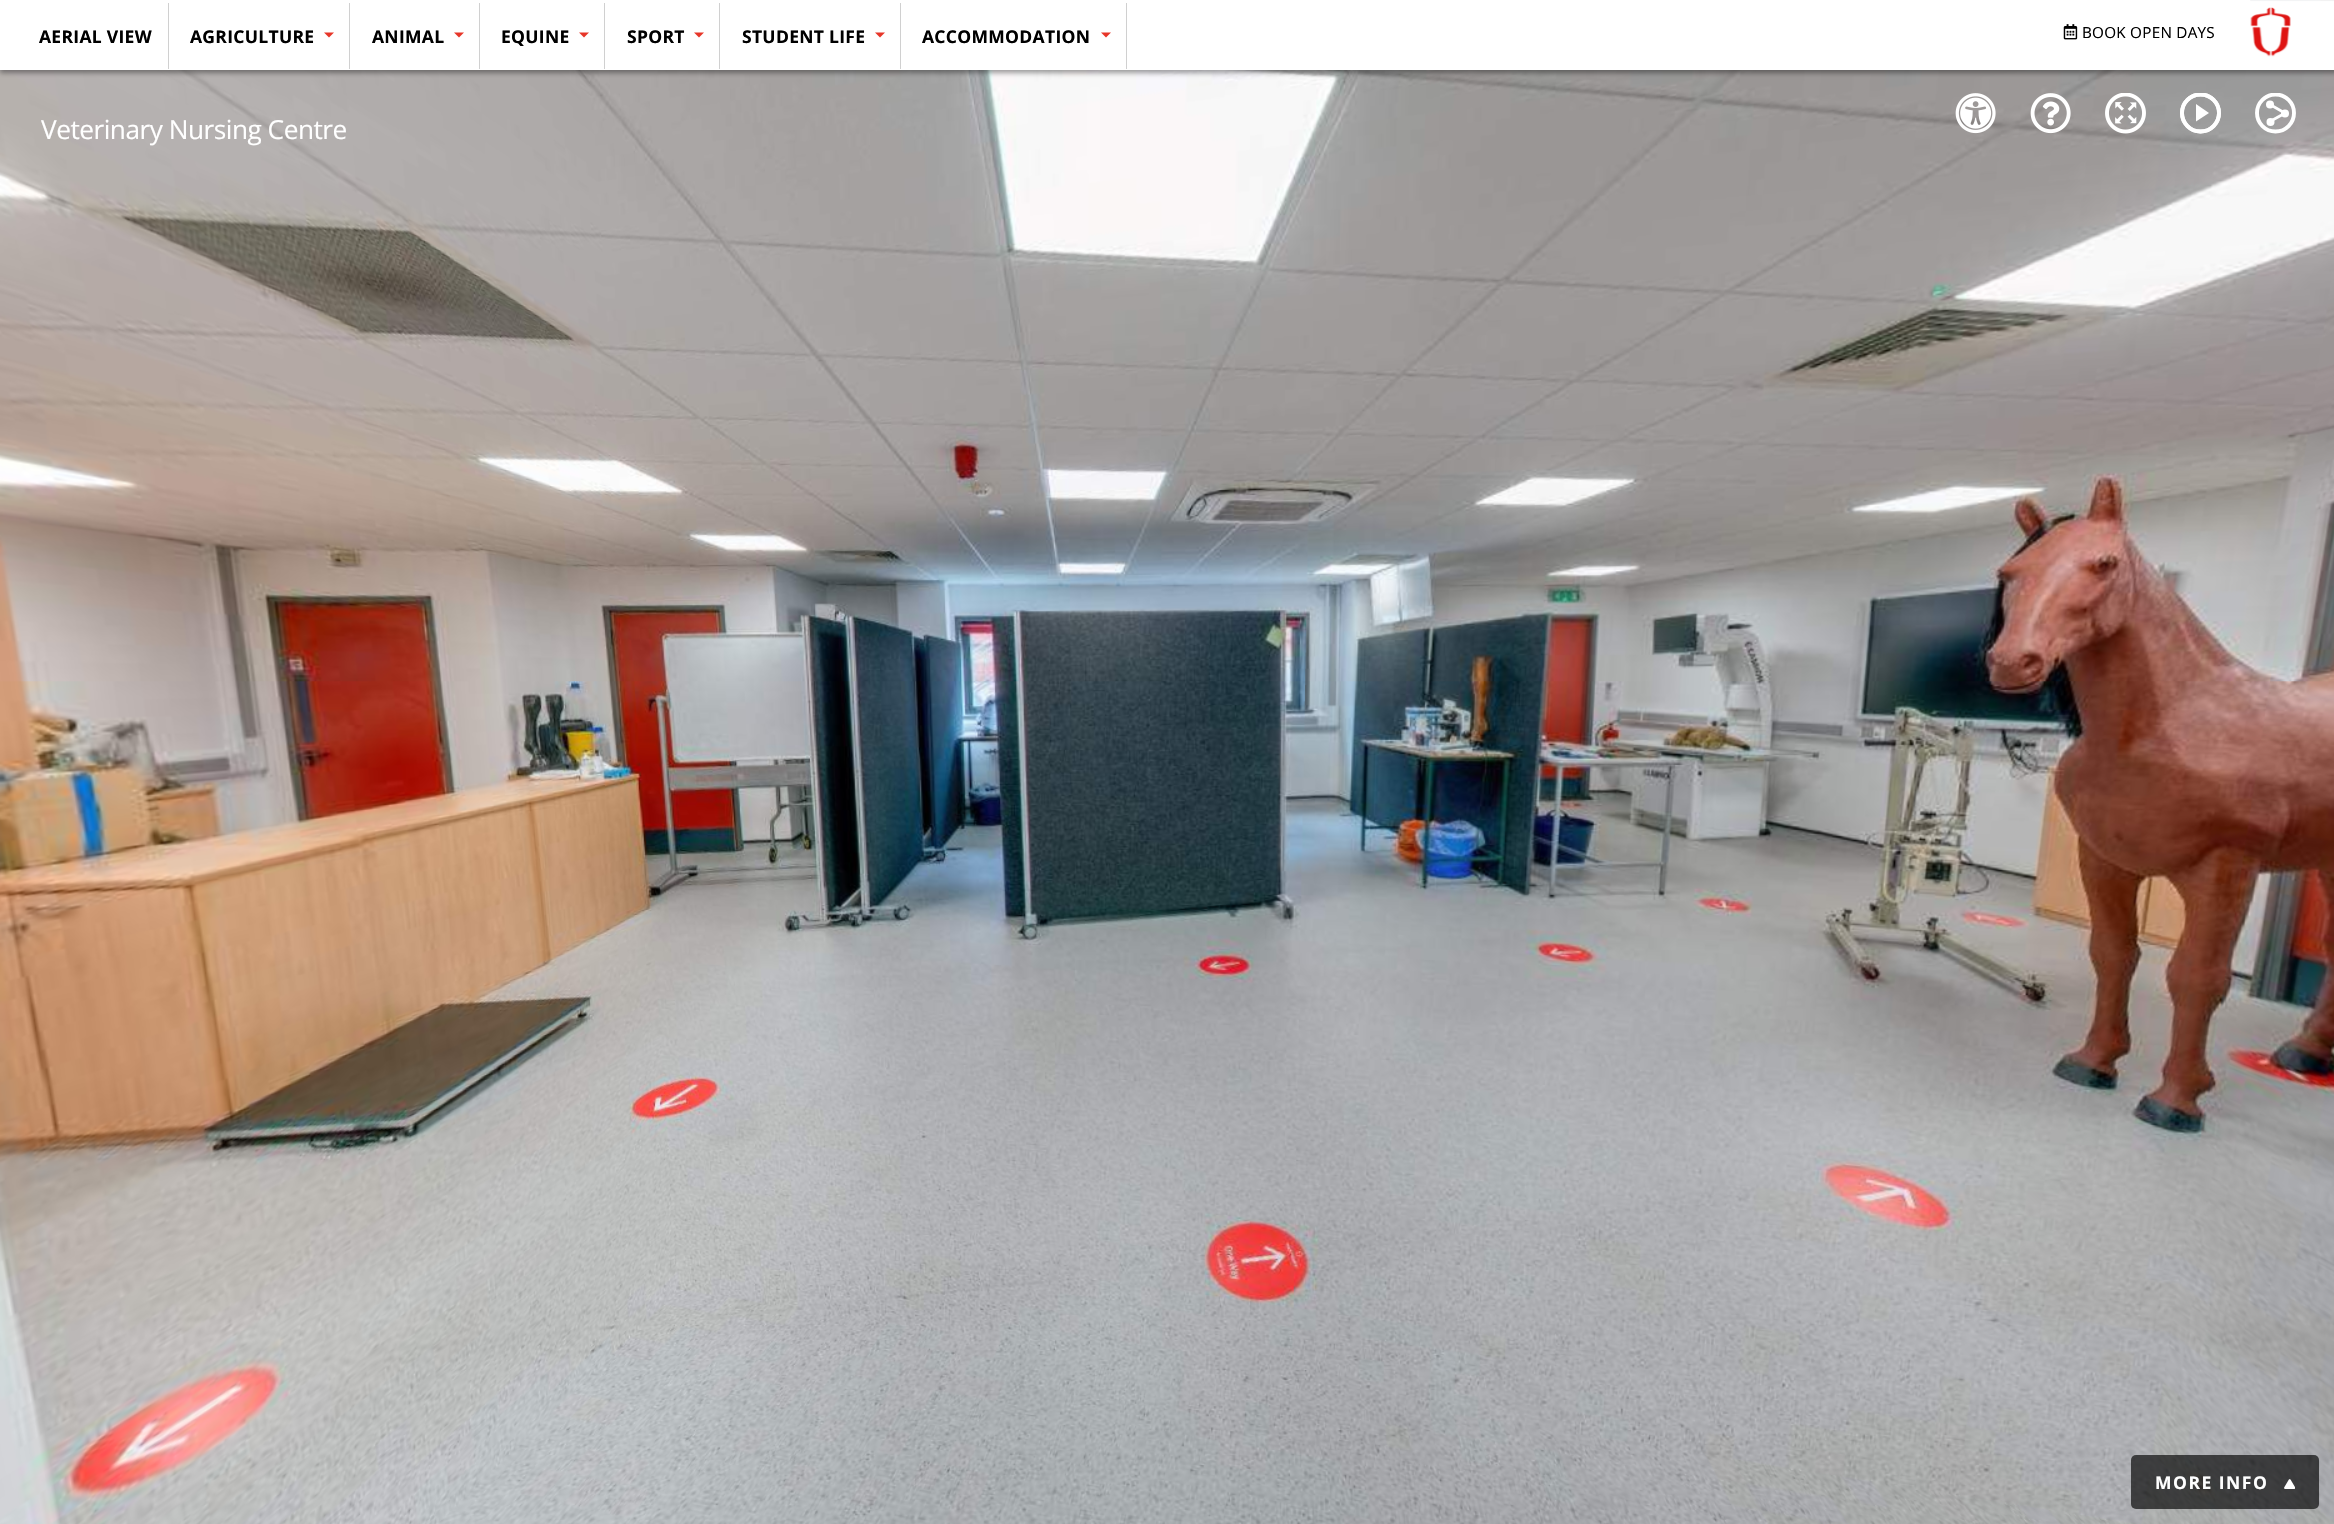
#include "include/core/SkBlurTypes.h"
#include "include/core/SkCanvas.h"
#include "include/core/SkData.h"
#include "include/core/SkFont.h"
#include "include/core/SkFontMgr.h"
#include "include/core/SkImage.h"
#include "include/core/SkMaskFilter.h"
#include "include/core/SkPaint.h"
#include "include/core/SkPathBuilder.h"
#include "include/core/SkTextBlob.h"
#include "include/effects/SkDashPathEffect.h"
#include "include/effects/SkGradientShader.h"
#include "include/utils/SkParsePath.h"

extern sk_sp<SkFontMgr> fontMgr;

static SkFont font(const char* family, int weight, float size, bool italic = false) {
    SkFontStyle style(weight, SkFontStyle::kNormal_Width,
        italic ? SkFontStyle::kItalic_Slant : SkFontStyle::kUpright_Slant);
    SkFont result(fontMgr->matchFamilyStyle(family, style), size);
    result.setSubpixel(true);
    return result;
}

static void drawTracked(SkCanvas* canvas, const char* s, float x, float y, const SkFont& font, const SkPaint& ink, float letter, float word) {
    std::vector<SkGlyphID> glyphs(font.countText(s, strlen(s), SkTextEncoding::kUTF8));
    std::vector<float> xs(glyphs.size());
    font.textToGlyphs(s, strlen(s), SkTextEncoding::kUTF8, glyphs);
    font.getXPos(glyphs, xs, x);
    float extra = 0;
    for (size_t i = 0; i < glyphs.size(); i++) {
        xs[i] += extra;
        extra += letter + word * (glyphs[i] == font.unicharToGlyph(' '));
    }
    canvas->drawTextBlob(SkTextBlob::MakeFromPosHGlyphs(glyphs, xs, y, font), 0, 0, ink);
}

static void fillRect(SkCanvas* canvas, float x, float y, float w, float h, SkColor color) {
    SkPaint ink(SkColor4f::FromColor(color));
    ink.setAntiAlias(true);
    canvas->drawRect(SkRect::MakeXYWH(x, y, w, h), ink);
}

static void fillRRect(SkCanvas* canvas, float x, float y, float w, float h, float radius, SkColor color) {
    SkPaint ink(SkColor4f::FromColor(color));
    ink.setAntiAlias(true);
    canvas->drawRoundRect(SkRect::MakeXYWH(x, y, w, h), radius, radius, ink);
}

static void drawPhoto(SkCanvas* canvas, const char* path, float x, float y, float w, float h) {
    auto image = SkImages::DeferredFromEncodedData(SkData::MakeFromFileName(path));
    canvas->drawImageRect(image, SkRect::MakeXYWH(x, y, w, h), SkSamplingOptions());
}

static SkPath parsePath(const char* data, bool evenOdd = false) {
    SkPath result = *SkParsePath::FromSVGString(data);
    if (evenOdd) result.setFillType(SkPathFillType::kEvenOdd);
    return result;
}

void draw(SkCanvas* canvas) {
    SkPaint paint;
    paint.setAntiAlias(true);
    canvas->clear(0xFFFFFFFF);
    drawPhoto(canvas, "assets/img3.png", 0, 70, 2334, 1454);
    paint.setColor(0x61000000);
    paint.setMaskFilter(SkMaskFilter::MakeBlur(kNormal_SkBlurStyle, 2.5f));
    canvas->drawRect(SkRect::MakeXYWH(0, 0, 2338, 73), paint);
    paint.setMaskFilter(nullptr);
    fillRect(canvas, 0, 0, 2334, 70, 0xFFFFFFFF);
    fillRect(canvas, 168, 3, 1, 66, 0xFFD0D0D0);
    SkFont font1 = font("Open Sans", 700, 17.5f);
    paint.setColor(0xFF000000);
    drawTracked(canvas, "AERIAL VIEW", 39, 43, font1, paint, 0.3f, 0);
    fillRect(canvas, 349, 3, 1, 66, 0xFFD0D0D0);
    drawTracked(canvas, "AGRICULTURE", 190, 43, font1, paint, 0.3f, 0);
    paint.setColor(0xFFE73629);
    canvas->drawPath(parsePath("M324 32.5H334L329 37.5Z"), paint);
    fillRect(canvas, 479, 3, 1, 66, 0xFFD0D0D0);
    paint.setColor(0xFF000000);
    drawTracked(canvas, "ANIMAL", 372, 43, font1, paint, 0.3f, 0);
    paint.setColor(0xFFE73629);
    canvas->drawPath(parsePath("M454 32.5H464L459 37.5Z"), paint);
    fillRect(canvas, 604, 3, 1, 66, 0xFFD0D0D0);
    paint.setColor(0xFF000000);
    drawTracked(canvas, "EQUINE", 501, 43, font1, paint, 0.3f, 0);
    paint.setColor(0xFFE73629);
    canvas->drawPath(parsePath("M579 32.5H589L584 37.5Z"), paint);
    fillRect(canvas, 719, 3, 1, 66, 0xFFD0D0D0);
    paint.setColor(0xFF000000);
    drawTracked(canvas, "SPORT", 627, 43, font1, paint, 0.3f, 0);
    paint.setColor(0xFFE73629);
    canvas->drawPath(parsePath("M694 32.5H704L699 37.5Z"), paint);
    fillRect(canvas, 900, 3, 1, 66, 0xFFD0D0D0);
    paint.setColor(0xFF000000);
    drawTracked(canvas, "STUDENT LIFE", 742, 43, font1, paint, 0.3f, 0);
    paint.setColor(0xFFE73629);
    canvas->drawPath(parsePath("M875 32.5H885L880 37.5Z"), paint);
    fillRect(canvas, 1126, 3, 1, 66, 0xFFD0D0D0);
    paint.setColor(0xFF000000);
    drawTracked(canvas, "ACCOMMODATION", 922, 43, font1, paint, 0.3f, 0);
    paint.setColor(0xFFE73629);
    canvas->drawPath(parsePath("M1101 32.5H1111L1106 37.5Z"), paint);
    drawPhoto(canvas, "assets/img1.png", 2063, 24, 15, 16);
    SkFont font2 = font("Open Sans", 400, 15.25f);
    paint.setColor(0xFF000000);
    drawTracked(canvas, "BOOK OPEN DAYS", 2082, 38, font2, paint, 0.25f, 0);
    drawPhoto(canvas, "assets/img2.png", 2250, 0, 84, 57);
    SkFont font3 = font("Open Sans", 400, 26.25f);
    paint.setColor(0xFFFFFFFF);
    drawTracked(canvas, "Veterinary Nursing Centre", 41, 139, font3, paint, -0.5f, 0);
    drawPhoto(canvas, "assets/img4.png", 1955, 93, 41, 41);
    drawPhoto(canvas, "assets/img5.png", 2030, 93, 41, 41);
    drawPhoto(canvas, "assets/img6.png", 2105, 93, 41, 41);
    canvas->save();
    canvas->clipRect(SkRect::MakeXYWH(2180, 93, 41, 41));
    paint.setStroke(true);
    paint.setStrokeWidth(3.9f);
    canvas->drawCircle(2200.5f, 113, 18.5f, paint);
    canvas->drawCircle(2200.5f, 113, 18.5f, paint);
    canvas->restore();
    paint.setStroke(false);
    canvas->drawPath(parsePath("M2196 104V121.5L2209 113Z"), paint);
    canvas->save();
    canvas->clipRect(SkRect::MakeXYWH(2255, 93, 41, 41));
    paint.setStroke(true);
    canvas->drawCircle(2275.5f, 113, 18.5f, paint);
    canvas->restore();
    paint.setStroke(false);
    canvas->drawCircle(2270, 104.5f, 4, paint);
    canvas->drawCircle(2285, 113.5f, 4, paint);
    canvas->drawCircle(2270.5f, 122, 4, paint);
    paint.setStroke(true);
    paint.setStrokeWidth(2.7f);
    canvas->drawPath(parsePath("M2270 121.5L2283.5 114M2270 104.5L2283 112"), paint);
    fillRRect(canvas, 2131, 1455, 188, 54, 5, 0xA6000000);
    paint.setStroke(false);
    drawTracked(canvas, "MORE INFO", 2155, 1489, font1, paint, 1.5f, 0);
    drawPhoto(canvas, "assets/img7.png", 2284, 1479, 11, 10);
}
